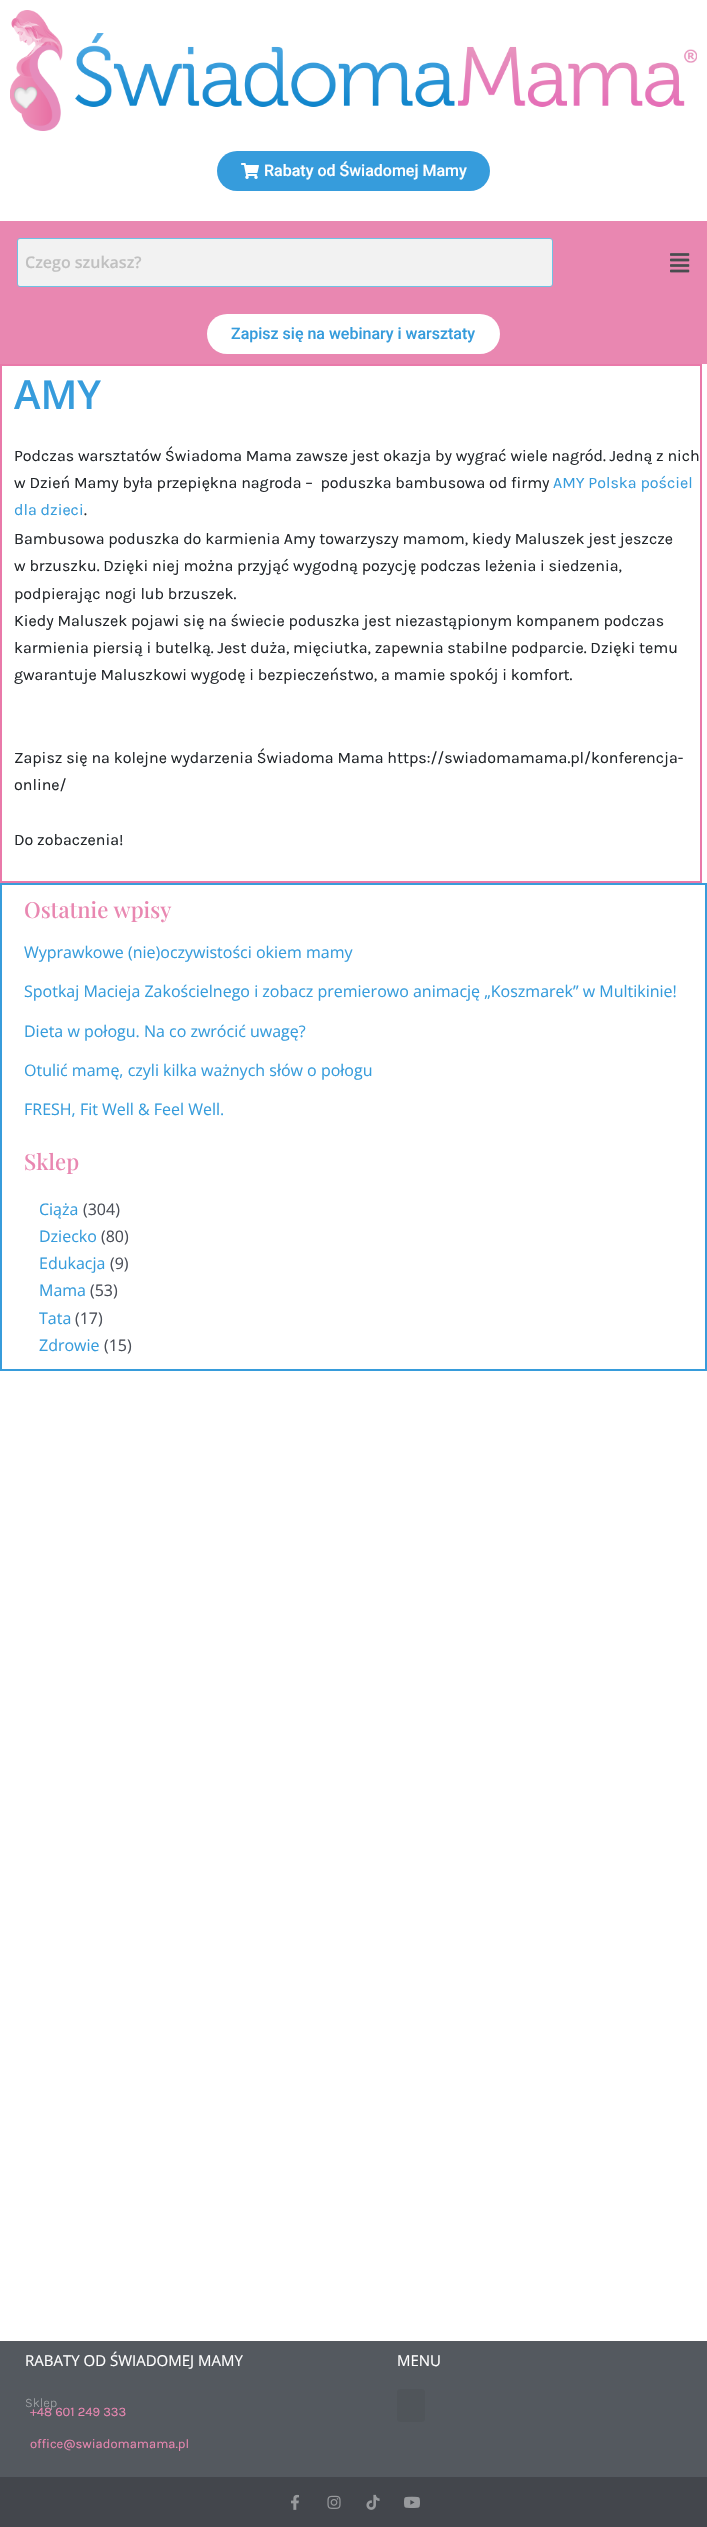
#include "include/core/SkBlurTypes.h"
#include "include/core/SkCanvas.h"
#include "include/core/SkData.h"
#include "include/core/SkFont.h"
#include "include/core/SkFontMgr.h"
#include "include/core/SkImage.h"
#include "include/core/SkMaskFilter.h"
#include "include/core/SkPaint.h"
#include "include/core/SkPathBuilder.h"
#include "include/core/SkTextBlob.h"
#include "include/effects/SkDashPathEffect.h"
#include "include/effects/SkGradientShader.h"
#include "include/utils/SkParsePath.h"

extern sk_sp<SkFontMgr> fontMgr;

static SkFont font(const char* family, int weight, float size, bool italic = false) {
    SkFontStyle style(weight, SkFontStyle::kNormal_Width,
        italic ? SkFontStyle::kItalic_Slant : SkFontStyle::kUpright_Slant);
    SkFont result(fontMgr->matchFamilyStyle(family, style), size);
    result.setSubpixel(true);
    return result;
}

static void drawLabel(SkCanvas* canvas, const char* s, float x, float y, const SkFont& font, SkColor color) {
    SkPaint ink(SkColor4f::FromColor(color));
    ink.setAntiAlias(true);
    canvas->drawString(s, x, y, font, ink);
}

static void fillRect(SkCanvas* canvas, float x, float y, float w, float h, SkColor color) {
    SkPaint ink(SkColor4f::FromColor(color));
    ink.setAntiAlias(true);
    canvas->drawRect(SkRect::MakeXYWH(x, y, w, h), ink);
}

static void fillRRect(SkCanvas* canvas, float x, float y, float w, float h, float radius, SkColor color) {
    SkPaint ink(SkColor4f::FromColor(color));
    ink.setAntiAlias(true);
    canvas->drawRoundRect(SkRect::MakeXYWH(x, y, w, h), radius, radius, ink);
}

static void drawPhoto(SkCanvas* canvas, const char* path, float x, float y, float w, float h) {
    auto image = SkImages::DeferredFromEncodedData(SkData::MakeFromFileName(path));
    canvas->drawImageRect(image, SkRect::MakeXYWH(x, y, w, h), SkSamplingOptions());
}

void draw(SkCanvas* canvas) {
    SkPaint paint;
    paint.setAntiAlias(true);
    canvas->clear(0xFFFFFFFF);
    drawPhoto(canvas, "assets/img1.png", 10, 10, 687, 121);
    fillRRect(canvas, 217, 151, 273, 40, 20, 0xFF369CDC);
    drawPhoto(canvas, "assets/img2.png", 241, 163, 18, 16);
    SkFont font1 = font("Roboto", 500, 16);
    drawLabel(canvas, "Rabaty od Świadomej Mamy", 264, 176, font1, 0xFFFFFFFF);
    fillRect(canvas, 0, 221, 707, 143, 0xFFE987B1);
    paint.setStroke(true);
    paint.setStrokeWidth(1);
    paint.setColor(0xFF6EC1E4);
    canvas->drawRoundRect(SkRect::MakeXYWH(17.5f, 238.5f, 535, 48), 2.5f, 2.5f, paint);
    fillRRect(canvas, 18, 239, 534, 47, 2, 0xFFF2F2F2);
    SkFont font2 = font("Open Sans", 600, 16);
    drawLabel(canvas, "Czego szukasz?", 25, 268, font2, 0xFFC0C0C0);
    drawPhoto(canvas, "assets/img3.png", 670, 253, 20, 20);
    fillRRect(canvas, 207, 314, 293, 40, 20, 0xFFFFFFFF);
    drawLabel(canvas, "Zapisz się na webinary i warsztaty", 231, 339, font1, 0xFF369CDC);
    paint.setStrokeWidth(2);
    paint.setColor(0xFFE979A9);
    canvas->drawRect(SkRect::MakeXYWH(1, 365, 700, 517), paint);
    SkFont font3 = font("Open Sans", 600, 40);
    drawLabel(canvas, "AMY", 14, 409, font3, 0xFF369CDC);
    SkFont font4 = font("Karla", 400, 16);
    drawLabel(canvas, "Podczas warsztatów Świadoma Mama zawsze jest okazja by wygrać wiele nagród. Jedną z nich", 14, 461, font4, 0xFF212529);
    drawLabel(canvas, "w Dzień Mamy była przepiękna nagroda –  poduszka bambusowa od firmy", 14, 488, font4, 0xFF212529);
    drawLabel(canvas, "AMY Polska pościel", 553, 488, font4, 0xFF369CDC);
    drawLabel(canvas, "dla dzieci", 14, 515, font4, 0xFF369CDC);
    drawLabel(canvas, ".", 84, 515, font4, 0xFF212529);
    drawLabel(canvas, "Bambusowa poduszka do karmienia Amy towarzyszy mamom, kiedy Maluszek jest jeszcze", 14, 544, font4, 0xFF212529);
    drawLabel(canvas, "w brzuszku. Dzięki niej można przyjąć wygodną pozycję podczas leżenia i siedzenia,", 14, 571, font4, 0xFF212529);
    drawLabel(canvas, "podpierając nogi lub brzuszek.", 14, 599, font4, 0xFF212529);
    drawLabel(canvas, "Kiedy Maluszek pojawi się na świecie poduszka jest niezastąpionym kompanem podczas", 14, 626, font4, 0xFF212529);
    drawLabel(canvas, "karmienia piersią i butelką. Jest duża, mięciutka, zapewnia stabilne podparcie. Dzięki temu", 14, 653, font4, 0xFF212529);
    drawLabel(canvas, "gwarantuje Maluszkowi wygodę i bezpieczeństwo, a mamie spokój i komfort.", 14, 680, font4, 0xFF212529);
    drawLabel(canvas, "Zapisz się na kolejne wydarzenia Świadoma Mama https://swiadomamama.pl/konferencja-", 14, 763, font4, 0xFF212529);
    drawLabel(canvas, "online/", 14, 790, font4, 0xFF212529);
    drawLabel(canvas, "Do zobaczenia!", 14, 845, font4, 0xFF212529);
    paint.setColor(0xFF379CDB);
    canvas->drawRect(SkRect::MakeXYWH(1, 884, 705, 486), paint);
    SkFont font5 = font("Playfair Display", 500, 22);
    drawLabel(canvas, "Ostatnie wpisy", 24, 918, font5, 0xFFE987B1);
    SkFont font6 = font("Open Sans", 400, 16);
    drawLabel(canvas, "Wyprawkowe (nie)oczywistości okiem mamy", 24, 958, font6, 0xFF369CDC);
    drawLabel(canvas, "Spotkaj Macieja Zakościelnego i zobacz premierowo animację „Koszmarek” w Multikinie!", 24, 997, font6, 0xFF369CDC);
    drawLabel(canvas, "Dieta w połogu. Na co zwrócić uwagę?", 24, 1037, font6, 0xFF369CDC);
    drawLabel(canvas, "Otulić mamę, czyli kilka ważnych słów o połogu", 24, 1076, font6, 0xFF369CDC);
    drawLabel(canvas, "FRESH, Fit Well & Feel Well.", 24, 1115, font6, 0xFF369CDC);
    drawLabel(canvas, "Sklep", 24, 1170, font5, 0xFFE987B1);
    drawLabel(canvas, "Ciąża", 39, 1215, font6, 0xFF369CDC);
    drawLabel(canvas, "(304)", 83, 1215, font6, 0xFF4B4F58);
    drawLabel(canvas, "Dziecko", 39, 1242, font6, 0xFF369CDC);
    drawLabel(canvas, "(80)", 101, 1242, font6, 0xFF4B4F58);
    drawLabel(canvas, "Edukacja", 39, 1269, font6, 0xFF369CDC);
    drawLabel(canvas, "(9)", 110, 1269, font6, 0xFF4B4F58);
    drawLabel(canvas, "Mama", 39, 1296, font6, 0xFF369CDC);
    drawLabel(canvas, "(53)", 90, 1296, font6, 0xFF4B4F58);
    drawLabel(canvas, "Tata", 39, 1324, font6, 0xFF369CDC);
    drawLabel(canvas, "(17)", 75, 1324, font6, 0xFF4B4F58);
    drawLabel(canvas, "Zdrowie", 39, 1351, font6, 0xFF369CDC);
    drawLabel(canvas, "(15)", 104, 1351, font6, 0xFF4B4F58);
    fillRect(canvas, 0, 2341, 707, 136, 0xFF54595F);
    SkFont font7 = font("Open Sans", 400, 15);
    drawLabel(canvas, "RABATY OD ŚWIADOMEJ MAMY", 25, 2366, font7, 0xFFFFFFFF);
    SkFont font8 = font("Karla", 300, 13);
    drawLabel(canvas, "Sklep", 25, 2407, font8, 0xFFA1A4A7);
    SkFont font9 = font("Karla", 400, 13);
    drawLabel(canvas, "+48 601 249 333", 30, 2416, font9, 0xFFE987B1);
    drawLabel(canvas, "office@swiadomamama.pl", 30, 2448, font9, 0xFFE987B1);
    drawLabel(canvas, "MENU", 397, 2366, font7, 0xFFFFFFFF);
    fillRRect(canvas, 397, 2389, 28, 33, 3, 0xFF50555A);
    fillRect(canvas, 0, 2477, 707, 50, 0xFF43464C);
    drawPhoto(canvas, "assets/img4.png", 291, 2494, 8, 16);
    drawPhoto(canvas, "assets/img5.png", 327, 2495, 14, 14);
    drawPhoto(canvas, "assets/img6.png", 366, 2494, 14, 16);
    drawPhoto(canvas, "assets/img7.png", 404, 2496, 16, 12);
}
